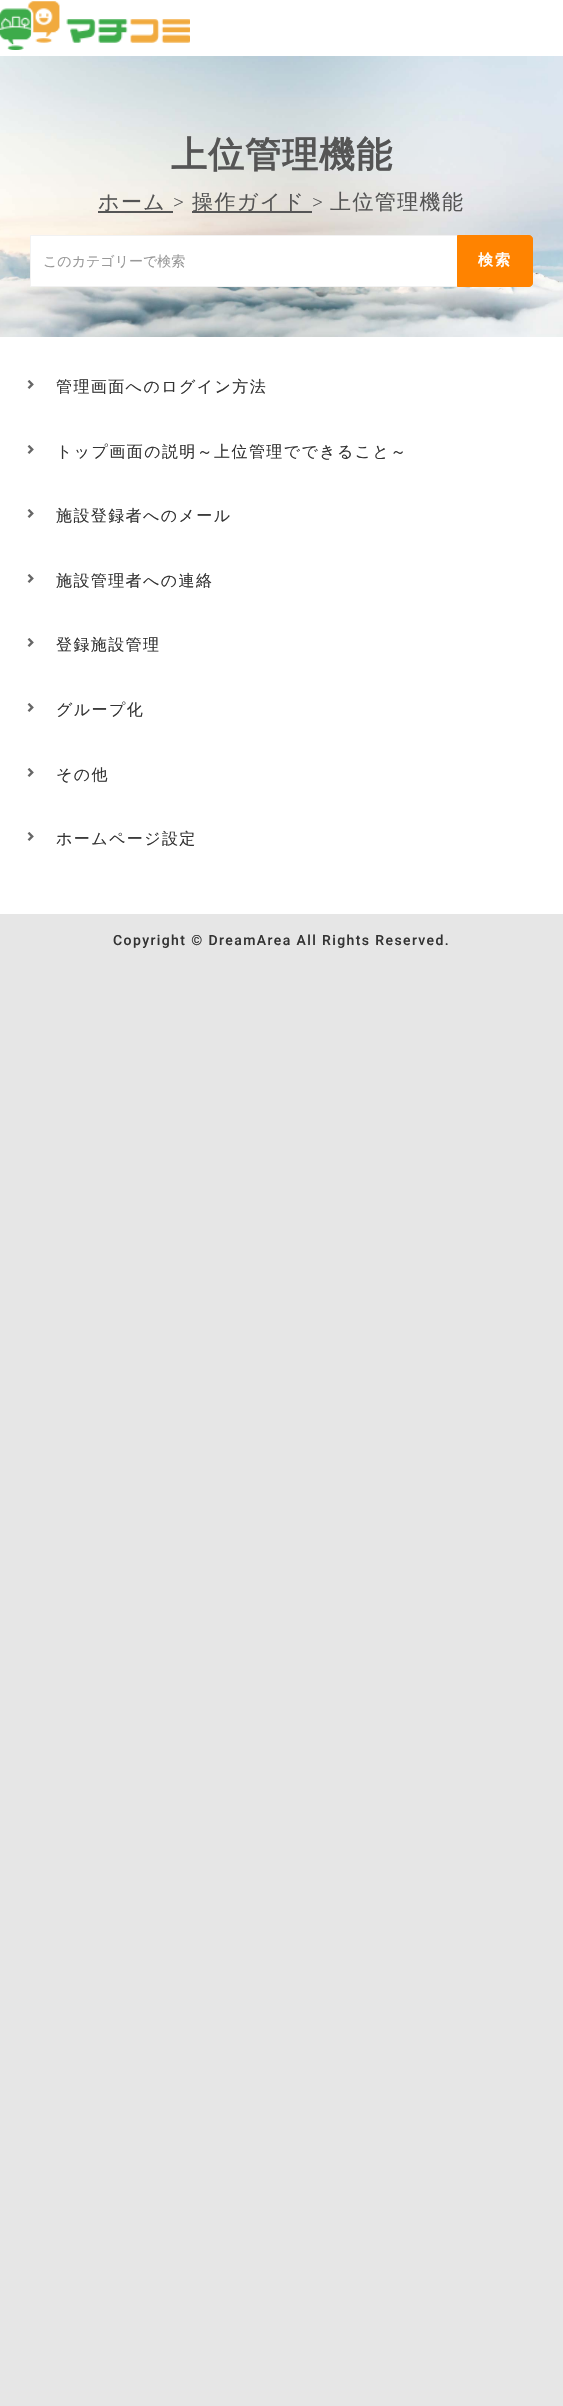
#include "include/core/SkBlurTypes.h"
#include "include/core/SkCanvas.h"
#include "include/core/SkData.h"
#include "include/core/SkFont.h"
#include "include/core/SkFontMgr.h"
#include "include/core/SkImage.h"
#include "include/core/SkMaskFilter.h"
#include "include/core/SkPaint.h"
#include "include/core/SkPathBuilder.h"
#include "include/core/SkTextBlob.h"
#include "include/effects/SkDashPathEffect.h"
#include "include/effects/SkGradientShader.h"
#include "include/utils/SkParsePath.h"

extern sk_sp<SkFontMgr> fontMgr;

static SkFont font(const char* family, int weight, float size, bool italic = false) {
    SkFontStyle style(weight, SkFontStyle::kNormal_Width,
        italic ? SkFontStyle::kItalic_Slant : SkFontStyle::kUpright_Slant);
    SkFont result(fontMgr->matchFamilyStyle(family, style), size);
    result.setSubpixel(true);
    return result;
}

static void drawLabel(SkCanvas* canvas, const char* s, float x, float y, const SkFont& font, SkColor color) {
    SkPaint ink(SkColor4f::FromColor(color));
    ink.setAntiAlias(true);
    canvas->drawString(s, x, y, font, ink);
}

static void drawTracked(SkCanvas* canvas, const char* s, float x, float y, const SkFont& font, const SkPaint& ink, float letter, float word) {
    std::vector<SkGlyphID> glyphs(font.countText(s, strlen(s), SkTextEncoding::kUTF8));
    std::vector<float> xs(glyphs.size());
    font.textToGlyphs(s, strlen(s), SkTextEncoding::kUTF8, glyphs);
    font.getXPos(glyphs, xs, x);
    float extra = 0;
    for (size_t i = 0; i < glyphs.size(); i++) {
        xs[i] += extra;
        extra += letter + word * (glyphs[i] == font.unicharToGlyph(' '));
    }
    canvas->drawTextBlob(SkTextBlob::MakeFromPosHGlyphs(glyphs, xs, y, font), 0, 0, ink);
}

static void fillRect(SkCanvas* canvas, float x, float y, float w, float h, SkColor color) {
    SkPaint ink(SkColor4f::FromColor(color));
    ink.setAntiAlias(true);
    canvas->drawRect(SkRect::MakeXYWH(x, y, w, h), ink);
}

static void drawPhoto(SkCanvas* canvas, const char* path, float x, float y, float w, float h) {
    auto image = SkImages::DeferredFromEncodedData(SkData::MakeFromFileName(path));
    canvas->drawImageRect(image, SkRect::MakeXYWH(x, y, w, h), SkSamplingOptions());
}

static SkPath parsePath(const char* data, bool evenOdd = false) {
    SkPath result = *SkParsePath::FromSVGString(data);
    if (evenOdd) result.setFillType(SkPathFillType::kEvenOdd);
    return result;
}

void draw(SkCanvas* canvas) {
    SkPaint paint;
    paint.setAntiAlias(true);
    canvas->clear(0xFFE6E6E6);
    fillRect(canvas, 0, 0, 563, 914, 0xFFFFFFFF);
    drawPhoto(canvas, "assets/img1.png", 0, 1, 190, 49);
    drawPhoto(canvas, "assets/img2.png", 0, 56, 563, 281);
    SkFont font1 = font("WenQuanYi Zen Hei", 700, 36);
    paint.setColor(0xFF555555);
    drawTracked(canvas, "上位管理機能", 171, 167, font1, paint, 1, 0);
    fillRect(canvas, 98, 211, 75, 2, 0xFF555555);
    SkFont font2 = font("WenQuanYi Zen Hei", 500, 21);
    drawTracked(canvas, "ホーム", 98, 209, font2, paint, 1.4f, 0);
    SkFont font3 = font("Roboto", 200, 21);
    drawTracked(canvas, ">", 173, 209, font3, paint, 1.4f, 0);
    fillRect(canvas, 192, 211, 120, 2, 0xFF555555);
    drawTracked(canvas, "操作ガイド", 192, 209, font2, paint, 1.4f, 0);
    drawTracked(canvas, ">", 312, 209, font3, paint, 1.4f, 0);
    drawTracked(canvas, "上位管理機能", 330, 209, font2, paint, 1.4f, 0);
    paint.setColor(0xFFFFFFFF);
    canvas->drawRect(SkRect::MakeXYWH(30.5f, 235.5f, 427, 51), paint);
    paint.setStroke(true);
    paint.setStrokeWidth(1);
    paint.setColor(0xFFF2F2F2);
    canvas->drawRect(SkRect::MakeXYWH(30.5f, 235.5f, 427, 51), paint);
    SkFont font4 = font("WenQuanYi Zen Hei", 500, 14);
    drawLabel(canvas, "このカテゴリーで検索", 43, 266, font4, 0xFF999999);
    paint.setStroke(false);
    paint.setColor(0xFFFF8300);
    canvas->drawPath(parsePath("M457.5 235.5H529C531 235.5 532.5 237 532.5 239V283C532.5 285 531 286.5 529 286.5H457.5Z"), paint);
    paint.setStroke(true);
    canvas->drawPath(parsePath("M457.5 235.5H529C531 235.5 532.5 237 532.5 239V283C532.5 285 531 286.5 529 286.5H457.5Z"), paint);
    SkFont font5 = font("WenQuanYi Zen Hei", 700, 15);
    paint.setStroke(false);
    paint.setColor(0xFFFFFFFF);
    drawTracked(canvas, "検索", 478, 265, font5, paint, 2, 0);
    drawPhoto(canvas, "assets/img3.png", 27, 380, 7, 9);
    SkFont font6 = font("WenQuanYi Zen Hei", 500, 16);
    paint.setColor(0xFF333333);
    drawTracked(canvas, "管理画面へのログイン方法", 56, 392, font6, paint, 1.4f, 0);
    drawPhoto(canvas, "assets/img3.png", 27, 445, 7, 9);
    drawTracked(canvas, "トップ画面の説明～上位管理でできること～", 56, 457, font6, paint, 1.4f, 0);
    drawPhoto(canvas, "assets/img3.png", 27, 509, 7, 9);
    drawTracked(canvas, "施設登録者へのメール", 56, 521, font6, paint, 1.4f, 0);
    drawPhoto(canvas, "assets/img3.png", 27, 574, 7, 9);
    drawTracked(canvas, "施設管理者への連絡", 56, 586, font6, paint, 1.4f, 0);
    drawPhoto(canvas, "assets/img3.png", 27, 638, 7, 9);
    drawTracked(canvas, "登録施設管理", 56, 650, font6, paint, 1.4f, 0);
    drawPhoto(canvas, "assets/img3.png", 27, 703, 7, 9);
    drawTracked(canvas, "グループ化", 56, 715, font6, paint, 1.4f, 0);
    drawPhoto(canvas, "assets/img3.png", 27, 768, 7, 9);
    drawTracked(canvas, "その他", 56, 780, font6, paint, 1.4f, 0);
    drawPhoto(canvas, "assets/img3.png", 27, 832, 7, 9);
    drawTracked(canvas, "ホームページ設定", 56, 844, font6, paint, 1.4f, 0);
    SkFont font7 = font("Roboto", 500, 14);
    drawTracked(canvas, "Copyright © DreamArea All Rights Reserved.", 113, 945, font7, paint, 1.4f, 0);
}
